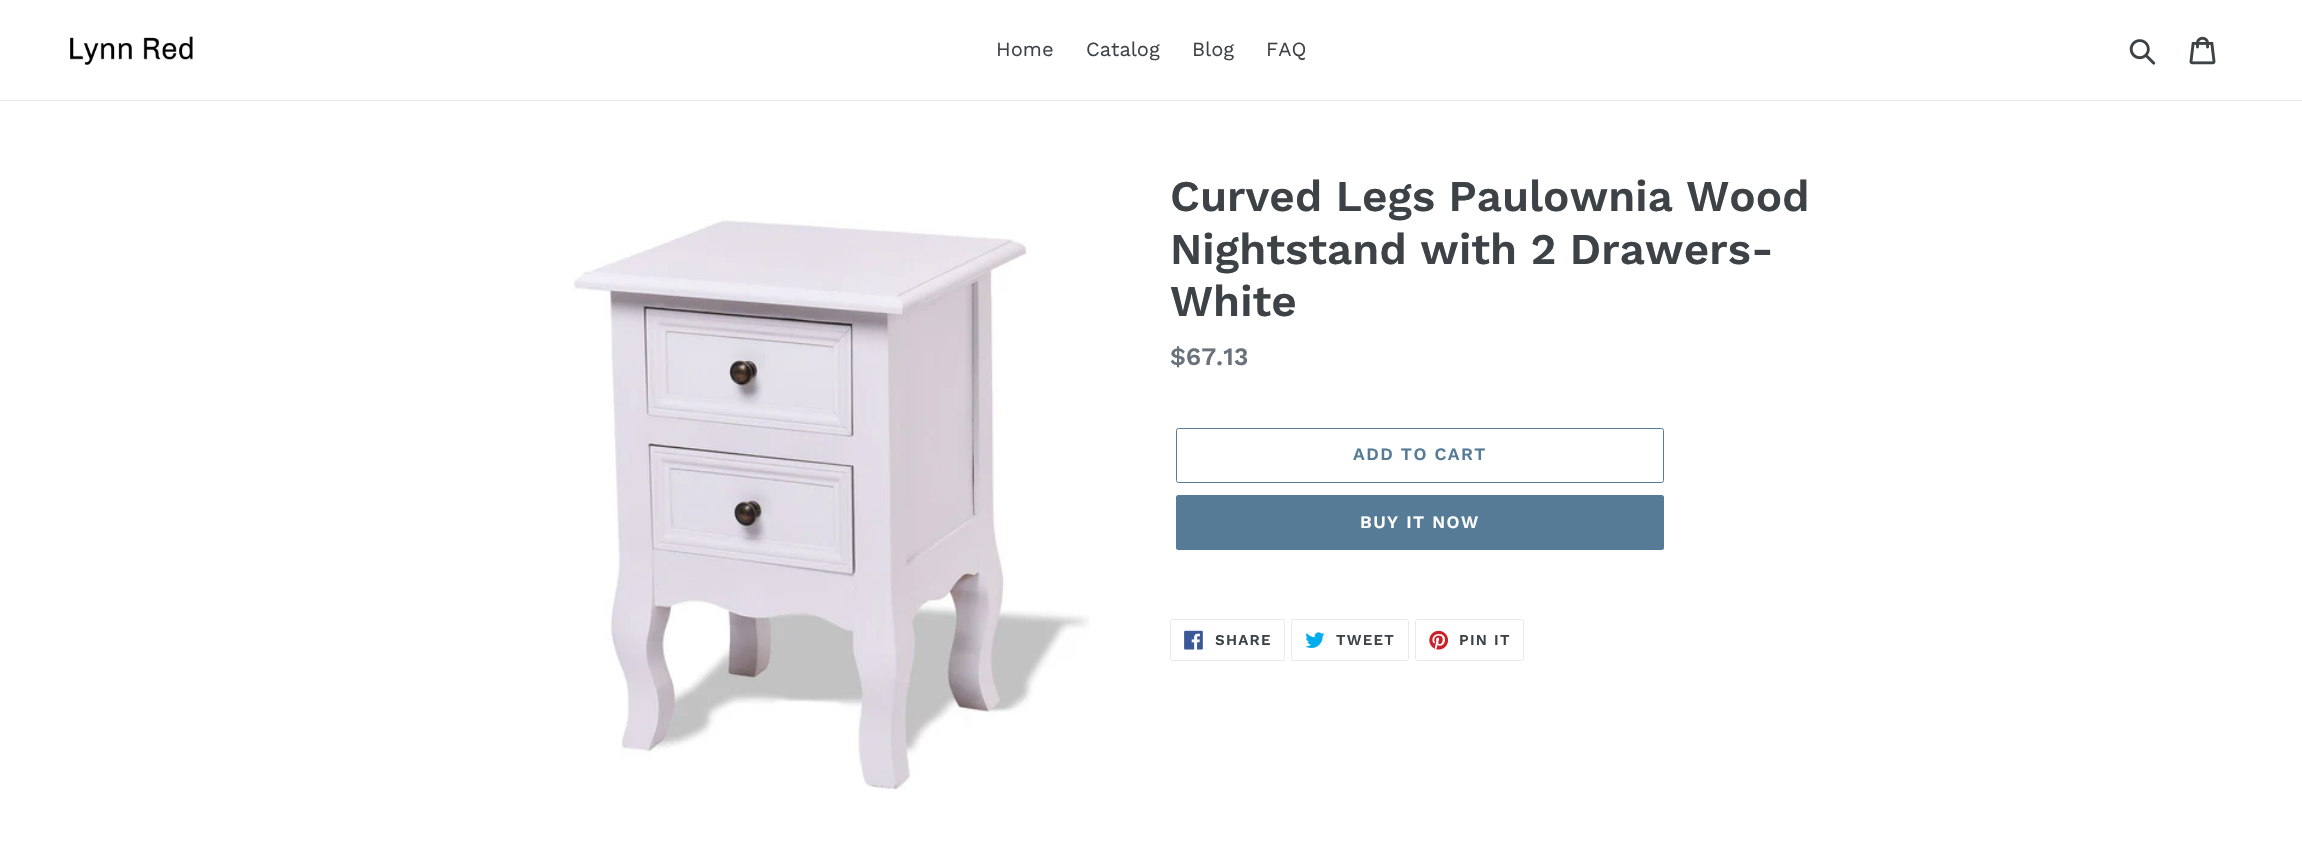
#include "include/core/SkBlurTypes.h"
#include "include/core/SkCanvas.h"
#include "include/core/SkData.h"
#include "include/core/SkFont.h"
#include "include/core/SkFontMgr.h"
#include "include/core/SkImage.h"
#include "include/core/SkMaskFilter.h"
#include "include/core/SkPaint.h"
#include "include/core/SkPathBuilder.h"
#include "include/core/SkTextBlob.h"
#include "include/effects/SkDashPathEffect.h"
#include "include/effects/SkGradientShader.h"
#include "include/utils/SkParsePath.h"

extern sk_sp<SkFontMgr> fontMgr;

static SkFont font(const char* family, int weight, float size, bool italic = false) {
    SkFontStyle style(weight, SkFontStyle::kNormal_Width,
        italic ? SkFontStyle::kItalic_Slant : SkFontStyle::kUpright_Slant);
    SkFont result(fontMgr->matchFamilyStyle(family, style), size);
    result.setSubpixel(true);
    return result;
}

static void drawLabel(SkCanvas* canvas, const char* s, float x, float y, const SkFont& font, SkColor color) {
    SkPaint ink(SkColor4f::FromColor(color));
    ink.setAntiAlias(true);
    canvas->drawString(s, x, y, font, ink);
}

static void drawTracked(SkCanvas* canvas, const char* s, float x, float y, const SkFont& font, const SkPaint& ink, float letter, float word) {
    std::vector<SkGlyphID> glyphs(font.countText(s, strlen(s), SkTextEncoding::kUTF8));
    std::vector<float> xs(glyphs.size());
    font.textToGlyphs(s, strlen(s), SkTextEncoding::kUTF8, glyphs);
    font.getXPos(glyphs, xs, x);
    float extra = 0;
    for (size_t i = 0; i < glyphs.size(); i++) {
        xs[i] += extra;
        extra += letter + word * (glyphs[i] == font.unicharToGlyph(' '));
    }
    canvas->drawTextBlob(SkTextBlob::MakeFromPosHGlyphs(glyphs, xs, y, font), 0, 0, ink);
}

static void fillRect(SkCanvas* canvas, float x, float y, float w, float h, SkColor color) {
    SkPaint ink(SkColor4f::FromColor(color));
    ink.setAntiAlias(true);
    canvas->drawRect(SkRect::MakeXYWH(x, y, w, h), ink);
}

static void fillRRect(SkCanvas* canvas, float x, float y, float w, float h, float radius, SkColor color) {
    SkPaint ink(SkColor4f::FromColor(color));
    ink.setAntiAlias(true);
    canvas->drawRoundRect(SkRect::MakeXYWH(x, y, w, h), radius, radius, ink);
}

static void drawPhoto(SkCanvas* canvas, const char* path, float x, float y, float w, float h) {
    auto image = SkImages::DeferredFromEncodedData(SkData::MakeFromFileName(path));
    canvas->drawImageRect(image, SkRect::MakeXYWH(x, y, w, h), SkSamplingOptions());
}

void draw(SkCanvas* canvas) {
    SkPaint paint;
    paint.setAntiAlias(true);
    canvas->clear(0xFFFFFFFF);
    fillRect(canvas, 0, 100, 2302, 1, 0xFFE8E9EB);
    drawPhoto(canvas, "assets/img1.png", 70, 36, 123, 29);
    SkFont font1 = font("Work Sans", 400, 20);
    drawLabel(canvas, "Home", 996, 56, font1, 0xFF3D4246);
    drawLabel(canvas, "Catalog", 1086, 56, font1, 0xFF3D4246);
    drawLabel(canvas, "Blog", 1192, 56, font1, 0xFF3D4246);
    drawLabel(canvas, "FAQ", 1266, 56, font1, 0xFF3D4246);
    drawPhoto(canvas, "assets/img2.png", 2129, 39, 27, 26);
    drawPhoto(canvas, "assets/img3.png", 2189, 36, 27, 29);
    drawPhoto(canvas, "assets/img4.png", 573, 220, 517, 569);
    SkFont font2 = font("Work Sans", 600, 43.75f);
    drawLabel(canvas, "Curved Legs Paulownia Wood", 1170, 211, font2, 0xFF3D4246);
    drawLabel(canvas, "Nightstand with 2 Drawers-", 1170, 264, font2, 0xFF3D4246);
    drawLabel(canvas, "White", 1170, 316, font2, 0xFF3D4246);
    SkFont font3 = font("Work Sans", 600, 25);
    drawLabel(canvas, "$67.13", 1170, 365, font3, 0xFF69727B);
    paint.setStroke(true);
    paint.setStrokeWidth(1);
    paint.setColor(0xFF557B97);
    canvas->drawRoundRect(SkRect::MakeXYWH(1176.5f, 428.5f, 487, 54), 2, 2, paint);
    SkFont font4 = font("Work Sans", 600, 17.5f);
    paint.setStroke(false);
    drawTracked(canvas, "ADD TO CART", 1353, 460, font4, paint, 1.4f, 0);
    fillRRect(canvas, 1176, 495, 488, 55, 2.5f, 0xFF557B97);
    paint.setColor(0xFFFFFFFF);
    drawTracked(canvas, "BUY IT NOW", 1360, 528, font4, paint, 1.4f, 0);
    paint.setStroke(true);
    paint.setColor(0xFFE8E9EB);
    canvas->drawRoundRect(SkRect::MakeXYWH(1170.5f, 619.5f, 114, 41), 2, 2, paint);
    drawPhoto(canvas, "assets/img5.png", 1184, 630, 19, 20);
    SkFont font5 = font("Work Sans", 600, 15);
    paint.setStroke(false);
    paint.setColor(0xFF3D4246);
    drawTracked(canvas, "SHARE", 1215, 645, font5, paint, 1.25f, 0);
    paint.setStroke(true);
    paint.setColor(0xFFE8E9EB);
    canvas->drawRoundRect(SkRect::MakeXYWH(1291.5f, 619.5f, 117, 41), 2, 2, paint);
    drawPhoto(canvas, "assets/img6.png", 1305, 632, 20, 16);
    paint.setStroke(false);
    paint.setColor(0xFF3D4246);
    drawTracked(canvas, "TWEET", 1336, 645, font5, paint, 1.25f, 0);
    paint.setStroke(true);
    paint.setColor(0xFFE8E9EB);
    canvas->drawRoundRect(SkRect::MakeXYWH(1415.5f, 619.5f, 108, 41), 2, 2, paint);
    drawPhoto(canvas, "assets/img7.png", 1429, 630, 20, 20);
    paint.setStroke(false);
    paint.setColor(0xFF3D4246);
    drawTracked(canvas, "PIN IT", 1459, 645, font5, paint, 1.25f, 0);
}
